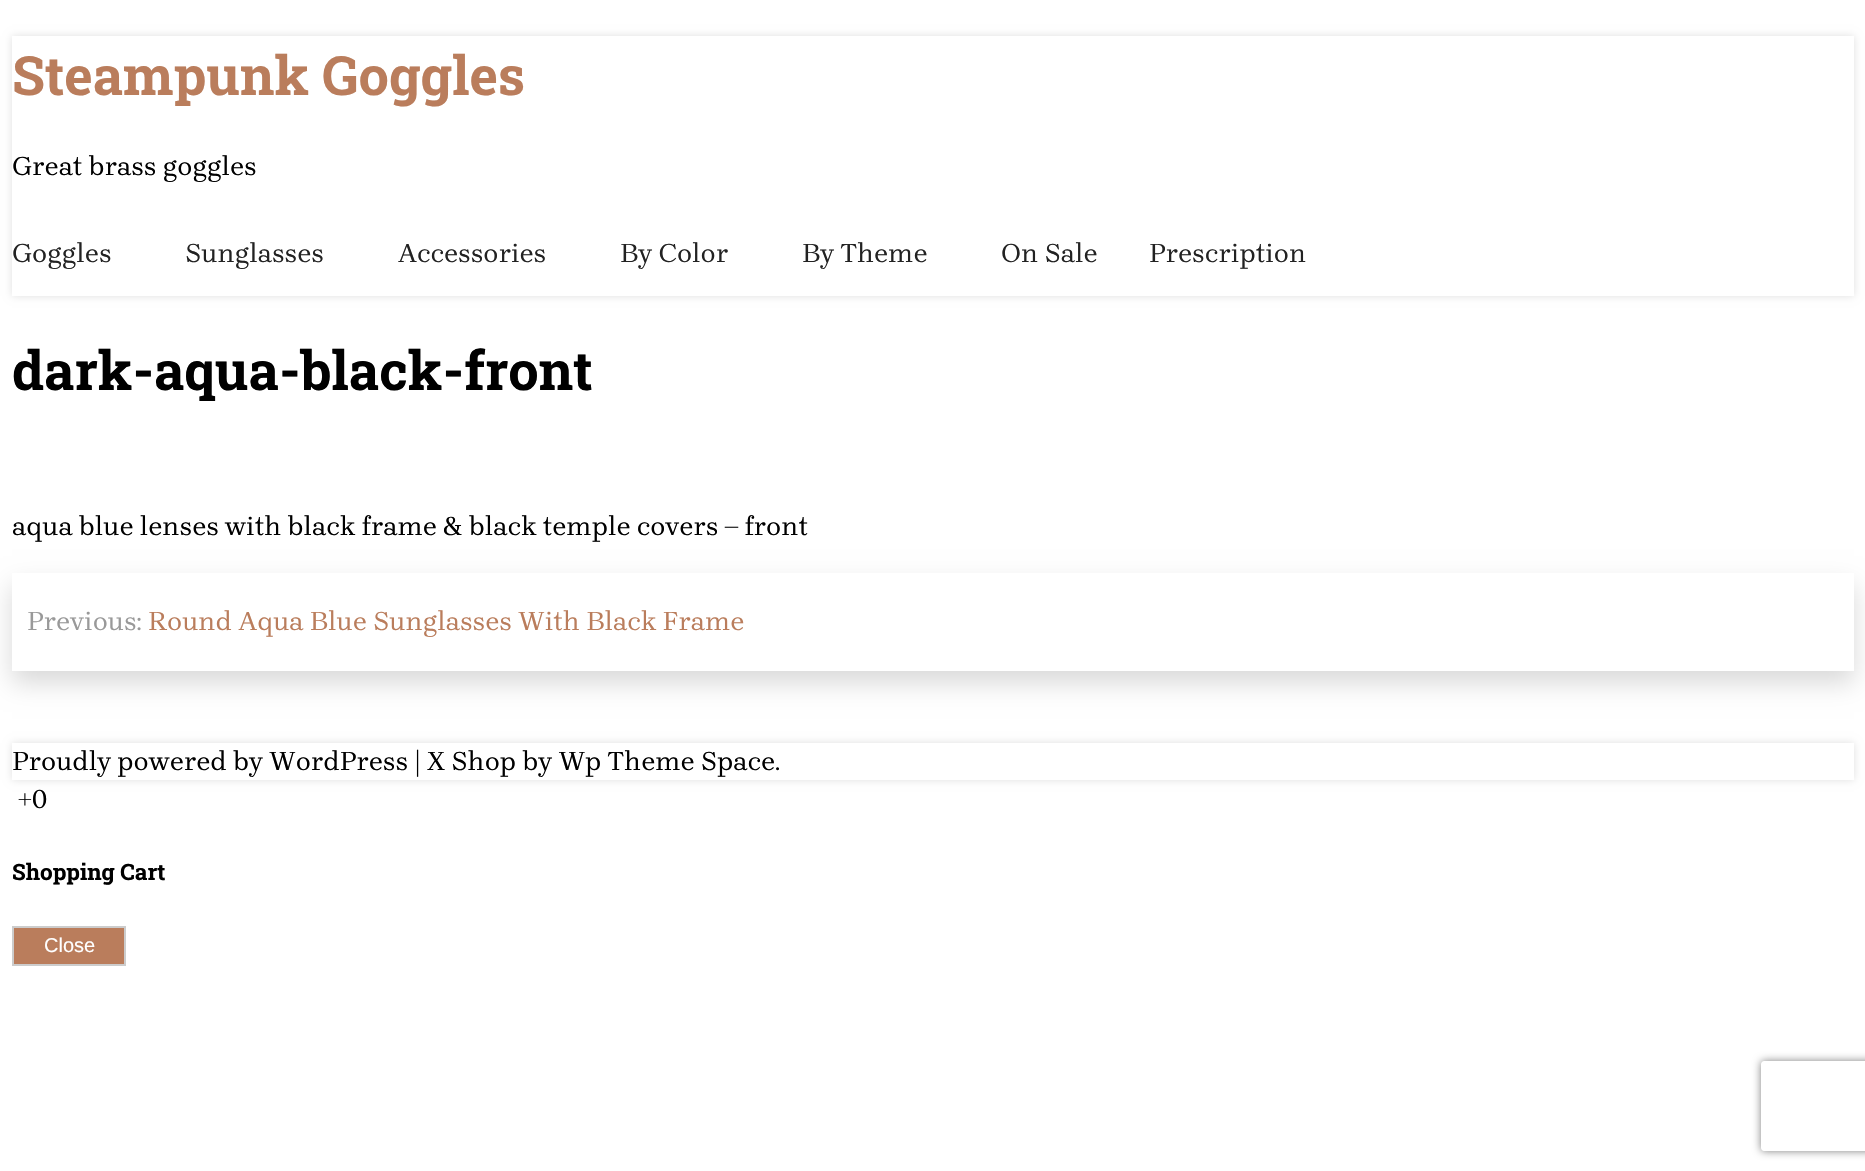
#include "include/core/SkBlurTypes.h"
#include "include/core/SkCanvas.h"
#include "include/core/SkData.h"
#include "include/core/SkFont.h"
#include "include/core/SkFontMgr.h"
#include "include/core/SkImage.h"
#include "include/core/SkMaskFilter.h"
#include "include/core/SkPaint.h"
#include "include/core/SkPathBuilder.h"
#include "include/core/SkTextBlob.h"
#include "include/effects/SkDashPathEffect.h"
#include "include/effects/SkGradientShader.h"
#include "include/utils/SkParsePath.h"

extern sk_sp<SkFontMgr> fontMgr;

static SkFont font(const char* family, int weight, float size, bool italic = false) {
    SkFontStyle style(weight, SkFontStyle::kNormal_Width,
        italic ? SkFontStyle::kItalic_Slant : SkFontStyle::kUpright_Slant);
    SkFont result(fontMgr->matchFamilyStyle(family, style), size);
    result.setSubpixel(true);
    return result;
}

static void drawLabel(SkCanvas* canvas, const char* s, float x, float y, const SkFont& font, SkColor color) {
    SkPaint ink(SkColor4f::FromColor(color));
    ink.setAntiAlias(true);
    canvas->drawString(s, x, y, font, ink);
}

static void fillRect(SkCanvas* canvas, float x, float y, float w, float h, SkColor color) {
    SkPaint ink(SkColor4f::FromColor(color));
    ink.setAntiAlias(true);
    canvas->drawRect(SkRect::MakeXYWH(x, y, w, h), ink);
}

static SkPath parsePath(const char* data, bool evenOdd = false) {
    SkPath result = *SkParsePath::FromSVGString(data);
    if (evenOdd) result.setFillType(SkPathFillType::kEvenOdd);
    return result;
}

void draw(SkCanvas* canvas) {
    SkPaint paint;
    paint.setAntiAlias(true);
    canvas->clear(0xFFFFFFFF);
    paint.setColor(0x1F000000);
    paint.setMaskFilter(SkMaskFilter::MakeBlur(kNormal_SkBlurStyle, 4));
    canvas->drawRect(SkRect::MakeXYWH(12, 36, 1842, 260), paint);
    paint.setMaskFilter(nullptr);
    fillRect(canvas, 12, 36, 1842, 260, 0xFFFFFFFF);
    SkFont font1 = font("Roboto Slab", 700, 54);
    drawLabel(canvas, "Steampunk Goggles", 12, 95, font1, 0xFFBA7D5C);
    SkFont font2 = font("Brygada 1918", 400, 27);
    drawLabel(canvas, "Great brass goggles", 12, 175, font2, 0xFF000000);
    drawLabel(canvas, "Goggles", 12, 262, font2, 0xFF222222);
    drawLabel(canvas, "Sunglasses", 185, 262, font2, 0xFF222222);
    drawLabel(canvas, "Accessories", 398, 262, font2, 0xFF222222);
    drawLabel(canvas, "By Color", 620, 262, font2, 0xFF222222);
    drawLabel(canvas, "By Theme", 802, 262, font2, 0xFF222222);
    drawLabel(canvas, "On Sale", 1001, 262, font2, 0xFF222222);
    drawLabel(canvas, "Prescription", 1149, 262, font2, 0xFF222222);
    drawLabel(canvas, "dark-aqua-black-front", 12, 390, font1, 0xFF000000);
    drawLabel(canvas, "aqua blue lenses with black frame & black temple covers – front", 12, 535, font2, 0xFF000000);
    canvas->save();
    canvas->clipPath(parsePath("M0 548H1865V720H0ZM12 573H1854V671H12Z", true), true);
    paint.setColor(0x26000000);
    paint.setMaskFilter(SkMaskFilter::MakeBlur(kNormal_SkBlurStyle, 12));
    canvas->drawRect(SkRect::MakeXYWH(12, 585, 1842, 98), paint);
    paint.setMaskFilter(nullptr);
    canvas->restore();
    drawLabel(canvas, "Previous:", 27, 630, font2, 0xFF999999);
    drawLabel(canvas, "Round Aqua Blue Sunglasses With Black Frame", 148, 630, font2, 0xFFBA7D5C);
    canvas->save();
    canvas->clipPath(parsePath("M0 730H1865V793H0ZM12 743H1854V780H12Z", true), true);
    paint.setColor(0x1F000000);
    paint.setMaskFilter(SkMaskFilter::MakeBlur(kNormal_SkBlurStyle, 4));
    canvas->drawRect(SkRect::MakeXYWH(12, 743, 1842, 37), paint);
    paint.setMaskFilter(nullptr);
    canvas->restore();
    drawLabel(canvas, "Proudly powered by WordPress | X Shop by Wp Theme Space.", 12, 770, font2, 0xFF000000);
    drawLabel(canvas, "+0", 18, 808, font2, 0xFF000000);
    SkFont font3 = font("Roboto Slab", 700, 22.5f);
    drawLabel(canvas, "Shopping Cart", 12, 880, font3, 0xFF000000);
    paint.setColor(0xFFBA7D5C);
    canvas->drawRect(SkRect::MakeXYWH(13, 927, 112, 38), paint);
    paint.setStroke(true);
    paint.setStrokeWidth(2);
    paint.setColor(0xFFCCCCCC);
    canvas->drawRect(SkRect::MakeXYWH(13, 927, 112, 38), paint);
    SkFont font4 = font("Liberation Sans", 400, 20);
    drawLabel(canvas, "Close", 44, 952, font4, 0xFFFFFFFF);
    canvas->save();
    canvas->clipPath(parsePath("M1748 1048H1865V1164H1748ZM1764 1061H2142C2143.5 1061 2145 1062.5 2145 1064V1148C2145 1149.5 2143.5 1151 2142 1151H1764C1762.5 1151 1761 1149.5 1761 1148V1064C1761 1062.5 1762.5 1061 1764 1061Z", true), true);
    paint.setStroke(false);
    paint.setColor(0xFF808080);
    paint.setMaskFilter(SkMaskFilter::MakeBlur(kNormal_SkBlurStyle, 4));
    canvas->drawRoundRect(SkRect::MakeXYWH(1761, 1061, 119, 90), 3, 3, paint);
    paint.setMaskFilter(nullptr);
    canvas->restore();
}
